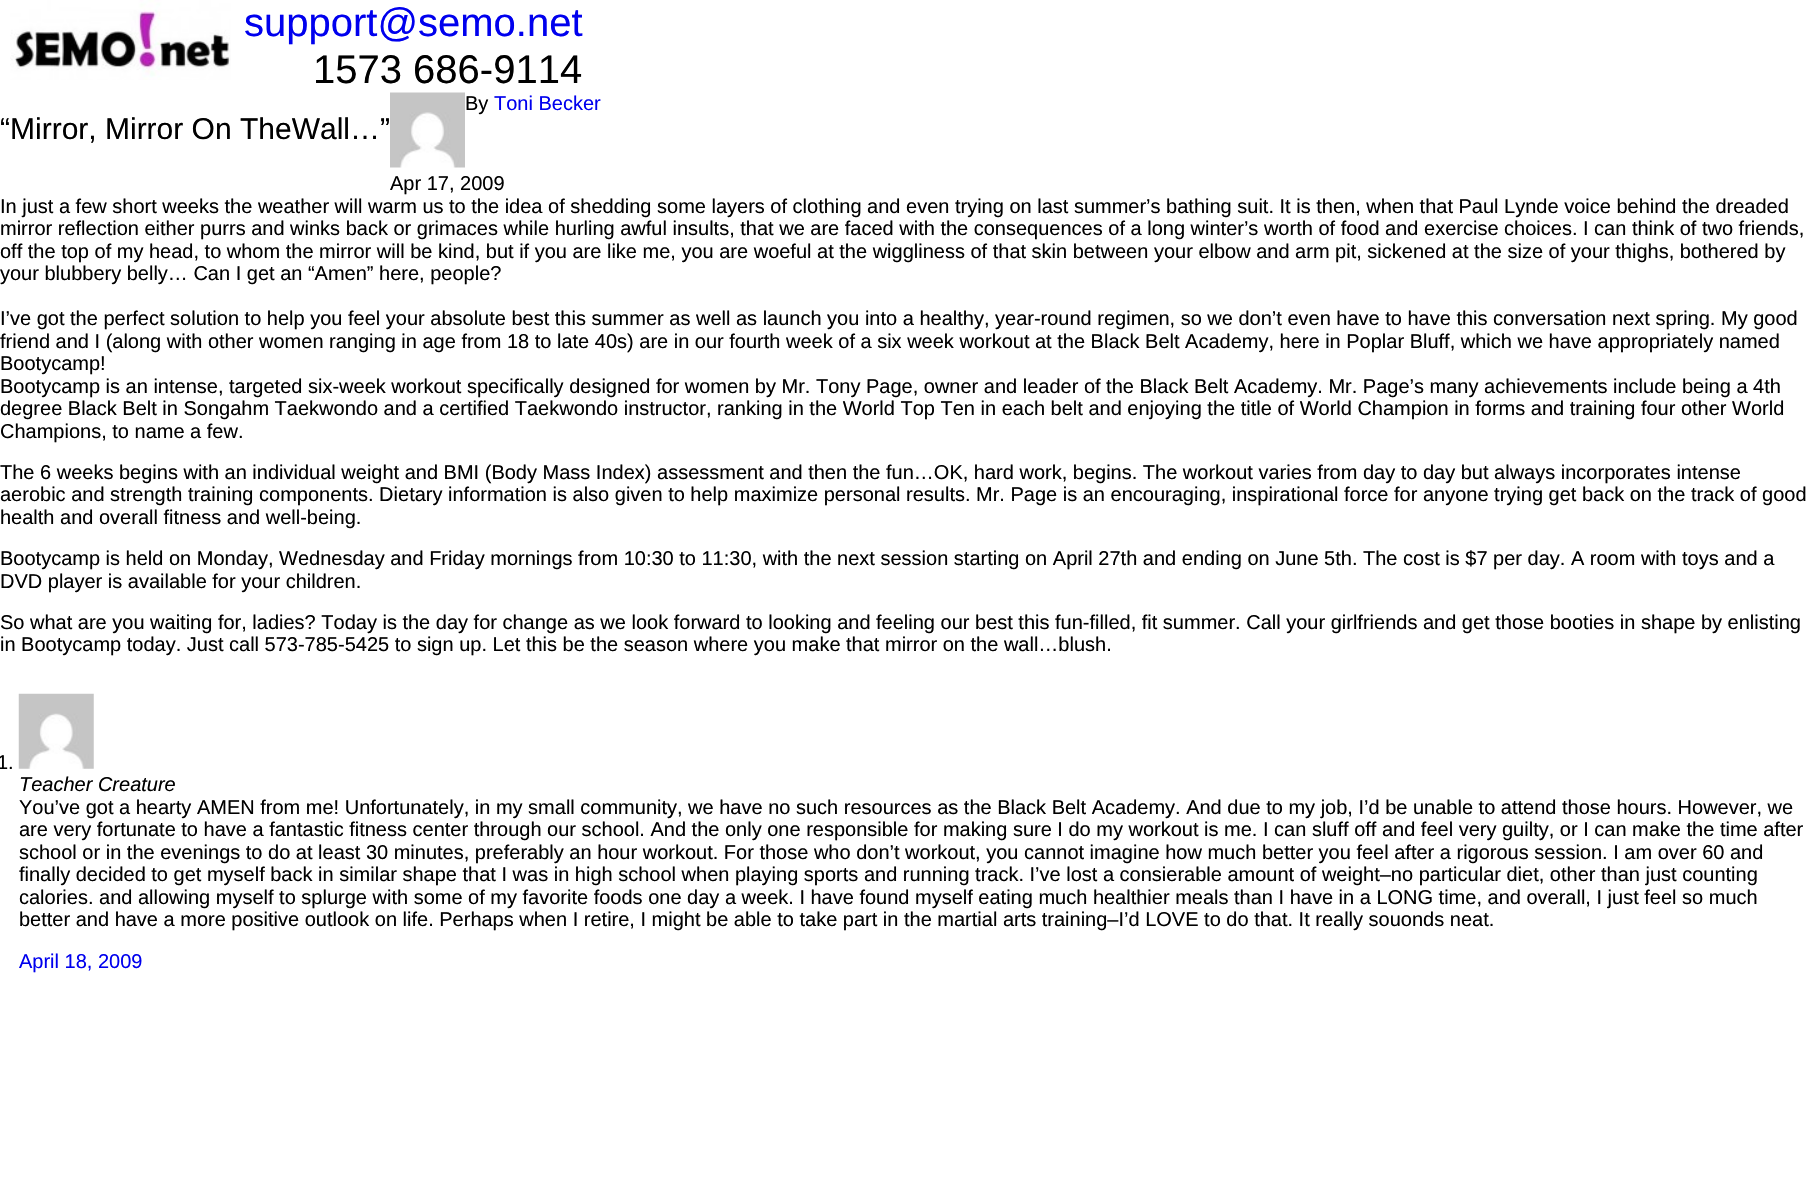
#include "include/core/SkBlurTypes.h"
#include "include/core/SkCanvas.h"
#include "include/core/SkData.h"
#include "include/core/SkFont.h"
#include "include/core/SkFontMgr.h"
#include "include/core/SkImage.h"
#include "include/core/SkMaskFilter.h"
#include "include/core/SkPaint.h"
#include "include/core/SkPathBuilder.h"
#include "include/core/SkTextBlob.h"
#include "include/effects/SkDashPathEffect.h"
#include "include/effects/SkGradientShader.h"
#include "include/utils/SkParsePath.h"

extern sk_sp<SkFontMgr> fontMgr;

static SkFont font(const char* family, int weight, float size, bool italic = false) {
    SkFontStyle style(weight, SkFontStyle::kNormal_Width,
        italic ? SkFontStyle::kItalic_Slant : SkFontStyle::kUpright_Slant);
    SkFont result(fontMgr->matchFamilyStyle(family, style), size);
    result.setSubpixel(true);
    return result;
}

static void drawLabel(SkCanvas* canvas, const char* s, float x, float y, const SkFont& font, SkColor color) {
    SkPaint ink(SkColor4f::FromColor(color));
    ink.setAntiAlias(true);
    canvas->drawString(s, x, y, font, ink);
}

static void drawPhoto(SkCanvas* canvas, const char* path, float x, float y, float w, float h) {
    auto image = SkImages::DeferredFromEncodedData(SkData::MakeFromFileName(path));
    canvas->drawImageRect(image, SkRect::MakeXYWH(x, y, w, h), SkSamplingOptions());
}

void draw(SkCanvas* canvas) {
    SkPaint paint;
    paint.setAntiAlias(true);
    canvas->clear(0xFFFFFFFF);
    drawPhoto(canvas, "assets/img1.png", 10, 0, 221, 80);
    SkFont font1 = font("Liberation Sans", 400, 40);
    drawLabel(canvas, "support@semo.net", 244, 36, font1, 0xFF0000EE);
    drawLabel(canvas, "1573 686-9114", 313, 83, font1, 0xFF000000);
    SkFont font2 = font("Liberation Sans", 400, 30);
    drawLabel(canvas, "“Mirror, Mirror On TheWall…”", 0, 139, font2, 0xFF000000);
    drawPhoto(canvas, "assets/img2.png", 390, 92, 75, 76);
    SkFont font3 = font("Liberation Sans", 400, 20);
    drawLabel(canvas, "By", 465, 110, font3, 0xFF000000);
    drawLabel(canvas, "Toni Becker", 494, 110, font3, 0xFF0000EE);
    drawLabel(canvas, "Apr 17, 2009", 390, 190, font3, 0xFF000000);
    drawLabel(canvas, "In just a few short weeks the weather will warm us to the idea of shedding some layers of clothing and even trying on last summer’s bathing suit. It is then, when that Paul Lynde voice behind the dreaded", 0, 213, font3, 0xFF000000);
    drawLabel(canvas, "mirror reflection either purrs and winks back or grimaces while hurling awful insults, that we are faced with the consequences of a long winter’s worth of food and exercise choices. I can think of two friends,", 0, 235, font3, 0xFF000000);
    drawLabel(canvas, "off the top of my head, to whom the mirror will be kind, but if you are like me, you are woeful at the wiggliness of that skin between your elbow and arm pit, sickened at the size of your thighs, bothered by", 0, 258, font3, 0xFF000000);
    drawLabel(canvas, "your blubbery belly… Can I get an “Amen” here, people?", 0, 280, font3, 0xFF000000);
    drawLabel(canvas, "I’ve got the perfect solution to help you feel your absolute best this summer as well as launch you into a healthy, year-round regimen, so we don’t even have to have this conversation next spring. My good", 0, 325, font3, 0xFF000000);
    drawLabel(canvas, "friend and I (along with other women ranging in age from 18 to late 40s) are in our fourth week of a six week workout at the Black Belt Academy, here in Poplar Bluff, which we have appropriately named", 0, 348, font3, 0xFF000000);
    drawLabel(canvas, "Bootycamp!", 0, 370, font3, 0xFF000000);
    drawLabel(canvas, "Bootycamp is an intense, targeted six-week workout specifically designed for women by Mr. Tony Page, owner and leader of the Black Belt Academy. Mr. Page’s many achievements include being a 4th", 0, 393, font3, 0xFF000000);
    drawLabel(canvas, "degree Black Belt in Songahm Taekwondo and a certified Taekwondo instructor, ranking in the World Top Ten in each belt and enjoying the title of World Champion in forms and training four other World", 0, 415, font3, 0xFF000000);
    drawLabel(canvas, "Champions, to name a few.", 0, 438, font3, 0xFF000000);
    drawLabel(canvas, "The 6 weeks begins with an individual weight and BMI (Body Mass Index) assessment and then the fun…OK, hard work, begins. The workout varies from day to day but always incorporates intense", 0, 479, font3, 0xFF000000);
    drawLabel(canvas, "aerobic and strength training components. Dietary information is also given to help maximize personal results. Mr. Page is an encouraging, inspirational force for anyone trying get back on the track of good", 0, 501, font3, 0xFF000000);
    drawLabel(canvas, "health and overall fitness and well-being.", 0, 524, font3, 0xFF000000);
    drawLabel(canvas, "Bootycamp is held on Monday, Wednesday and Friday mornings from 10:30 to 11:30, with the next session starting on April 27th and ending on June 5th. The cost is $7 per day. A room with toys and a", 0, 565, font3, 0xFF000000);
    drawLabel(canvas, "DVD player is available for your children.", 0, 588, font3, 0xFF000000);
    drawLabel(canvas, "So what are you waiting for, ladies? Today is the day for change as we look forward to looking and feeling our best this fun-filled, fit summer. Call your girlfriends and get those booties in shape by enlisting", 0, 629, font3, 0xFF000000);
    drawLabel(canvas, "in Bootycamp today. Just call 573-785-5425 to sign up. Let this be the season where you make that mirror on the wall…blush.", 0, 651, font3, 0xFF000000);
    drawLabel(canvas, "1.", -3, 769, font3, 0xFF000000);
    drawPhoto(canvas, "assets/img3.png", 18, 693, 76, 76);
    SkFont font4 = font("Liberation Sans", 400, 20, true);
    drawLabel(canvas, "Teacher Creature", 19, 791, font4, 0xFF000000);
    drawLabel(canvas, "You’ve got a hearty AMEN from me! Unfortunately, in my small community, we have no such resources as the Black Belt Academy. And due to my job, I’d be unable to attend those hours. However, we", 19, 814, font3, 0xFF000000);
    drawLabel(canvas, "are very fortunate to have a fantastic fitness center through our school. And the only one responsible for making sure I do my workout is me. I can sluff off and feel very guilty, or I can make the time after", 19, 836, font3, 0xFF000000);
    drawLabel(canvas, "school or in the evenings to do at least 30 minutes, preferably an hour workout. For those who don’t workout, you cannot imagine how much better you feel after a rigorous session. I am over 60 and", 19, 859, font3, 0xFF000000);
    drawLabel(canvas, "finally decided to get myself back in similar shape that I was in high school when playing sports and running track. I’ve lost a consierable amount of weight–no particular diet, other than just counting", 19, 881, font3, 0xFF000000);
    drawLabel(canvas, "calories. and allowing myself to splurge with some of my favorite foods one day a week. I have found myself eating much healthier meals than I have in a LONG time, and overall, I just feel so much", 19, 904, font3, 0xFF000000);
    drawLabel(canvas, "better and have a more positive outlook on life. Perhaps when I retire, I might be able to take part in the martial arts training–I’d LOVE to do that. It really souonds neat.", 19, 926, font3, 0xFF000000);
    drawLabel(canvas, "April 18, 2009", 19, 968, font3, 0xFF0000EE);
}
